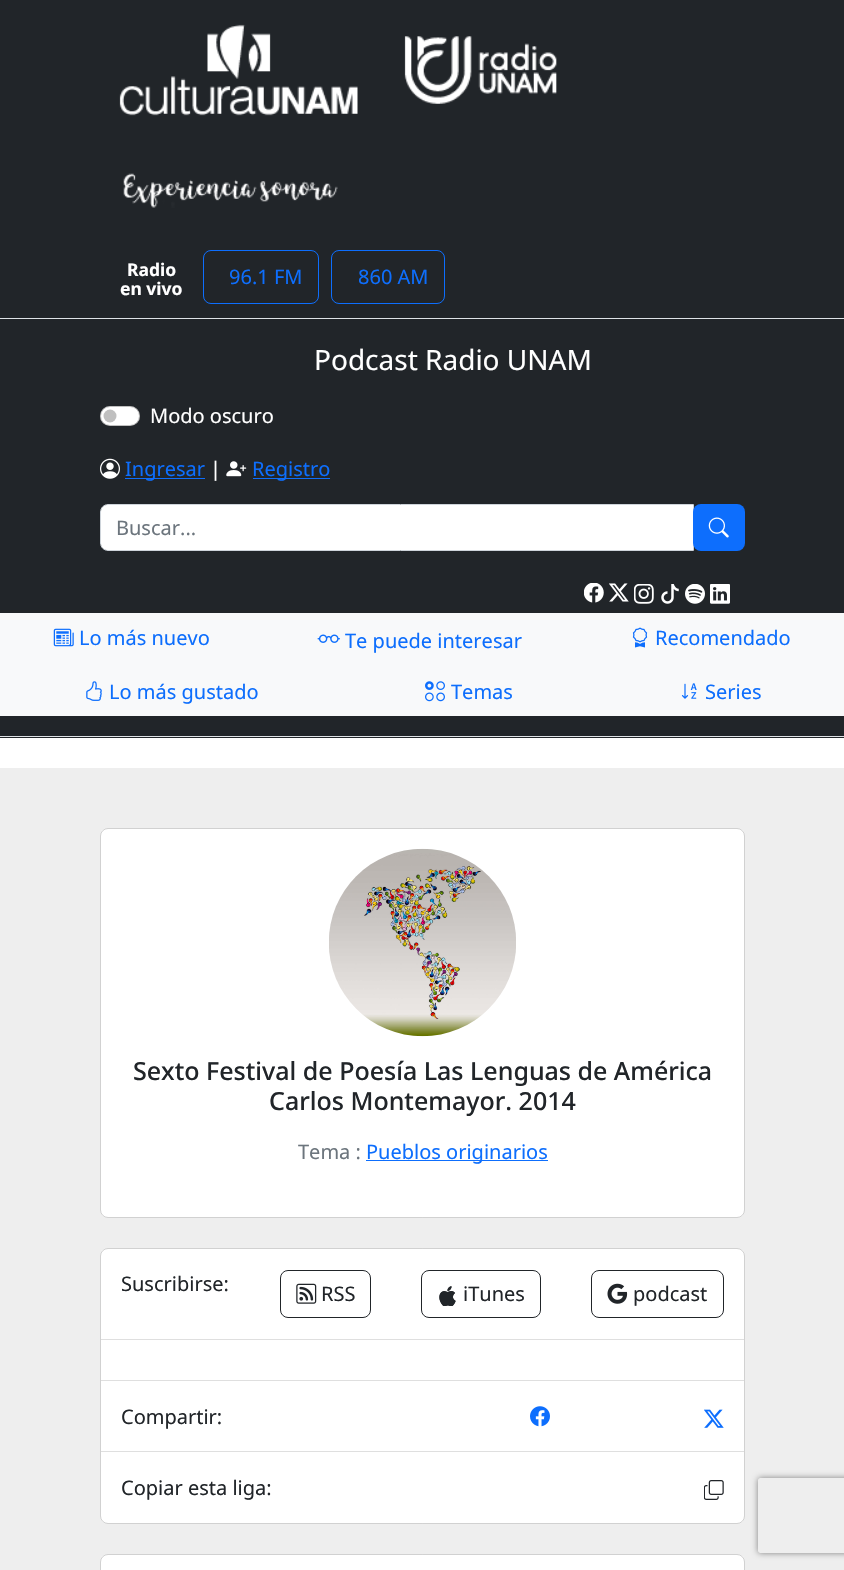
#include "include/core/SkBlurTypes.h"
#include "include/core/SkCanvas.h"
#include "include/core/SkData.h"
#include "include/core/SkFont.h"
#include "include/core/SkFontMgr.h"
#include "include/core/SkImage.h"
#include "include/core/SkMaskFilter.h"
#include "include/core/SkPaint.h"
#include "include/core/SkPathBuilder.h"
#include "include/core/SkTextBlob.h"
#include "include/effects/SkDashPathEffect.h"
#include "include/effects/SkGradientShader.h"
#include "include/utils/SkParsePath.h"

extern sk_sp<SkFontMgr> fontMgr;

static SkFont font(const char* family, int weight, float size, bool italic = false) {
    SkFontStyle style(weight, SkFontStyle::kNormal_Width,
        italic ? SkFontStyle::kItalic_Slant : SkFontStyle::kUpright_Slant);
    SkFont result(fontMgr->matchFamilyStyle(family, style), size);
    result.setSubpixel(true);
    return result;
}

static void drawLabel(SkCanvas* canvas, const char* s, float x, float y, const SkFont& font, SkColor color) {
    SkPaint ink(SkColor4f::FromColor(color));
    ink.setAntiAlias(true);
    canvas->drawString(s, x, y, font, ink);
}

static void fillRect(SkCanvas* canvas, float x, float y, float w, float h, SkColor color) {
    SkPaint ink(SkColor4f::FromColor(color));
    ink.setAntiAlias(true);
    canvas->drawRect(SkRect::MakeXYWH(x, y, w, h), ink);
}

static void fillRRect(SkCanvas* canvas, float x, float y, float w, float h, float radius, SkColor color) {
    SkPaint ink(SkColor4f::FromColor(color));
    ink.setAntiAlias(true);
    canvas->drawRoundRect(SkRect::MakeXYWH(x, y, w, h), radius, radius, ink);
}

static void drawPhoto(SkCanvas* canvas, const char* path, float x, float y, float w, float h) {
    auto image = SkImages::DeferredFromEncodedData(SkData::MakeFromFileName(path));
    canvas->drawImageRect(image, SkRect::MakeXYWH(x, y, w, h), SkSamplingOptions());
}

static SkPath parsePath(const char* data, bool evenOdd = false) {
    SkPath result = *SkParsePath::FromSVGString(data);
    if (evenOdd) result.setFillType(SkPathFillType::kEvenOdd);
    return result;
}

void draw(SkCanvas* canvas) {
    SkPaint paint;
    paint.setAntiAlias(true);
    canvas->clear(0xFFFFFFFF);
    fillRect(canvas, 0, 0, 844, 318, 0xFF212529);
    fillRect(canvas, 0, 318, 844, 1, 0xFFDEE2E6);
    drawPhoto(canvas, "assets/img1.png", 119, 24, 239, 92);
    drawPhoto(canvas, "assets/img2.png", 404, 36, 153, 68);
    drawPhoto(canvas, "assets/img3.png", 123, 173, 215, 35);
    SkFont font1 = font("Noto Sans", 700, 17.5f);
    drawLabel(canvas, "Radio", 127, 276, font1, 0xFFFFFFFF);
    drawLabel(canvas, "en vivo", 120, 295, font1, 0xFFFFFFFF);
    paint.setStroke(true);
    paint.setStrokeWidth(1);
    paint.setColor(0xFF0D6EFD);
    canvas->drawRoundRect(SkRect::MakeXYWH(203.5f, 250.5f, 115, 53), 7.5f, 7.5f, paint);
    SkFont font2 = font("Noto Sans", 400, 20);
    drawLabel(canvas, "96.1 FM", 229, 284, font2, 0xFF0D6EFD);
    canvas->drawRoundRect(SkRect::MakeXYWH(331.5f, 250.5f, 113, 53), 7.5f, 7.5f, paint);
    drawLabel(canvas, "860 AM", 358, 284, font2, 0xFF0D6EFD);
    fillRect(canvas, 0, 319, 844, 419, 0xFF212529);
    fillRect(canvas, 0, 736, 844, 1, 0xFFDEE2E6);
    SkFont font3 = font("Noto Sans", 400, 28);
    drawLabel(canvas, "Podcast Radio UNAM", 314, 370, font3, 0xFFFFFFFF);
    fillRRect(canvas, 100, 406, 40, 20, 10, 0xFFFFFFFF);
    paint.setStroke(false);
    paint.setColor(0xFFBFBFBF);
    canvas->drawCircle(110, 416, 6.5f, paint);
    paint.setStroke(true);
    paint.setColor(0x40000000);
    canvas->drawRoundRect(SkRect::MakeXYWH(100.5f, 406.5f, 39, 19), 9.5f, 9.5f, paint);
    drawLabel(canvas, "Modo oscuro", 150, 423, font2, 0xFFFFFFFF);
    drawPhoto(canvas, "assets/img4.png", 100, 458, 20, 21);
    fillRect(canvas, 125, 478, 80, 1, 0xFF0D6EFD);
    drawLabel(canvas, "Ingresar", 125, 476, font2, 0xFF0D6EFD);
    drawLabel(canvas, "|", 210, 476, font2, 0xFFFFFFFF);
    drawPhoto(canvas, "assets/img5.png", 226, 461, 21, 16);
    fillRect(canvas, 253, 478, 77, 1, 0xFF0D6EFD);
    drawLabel(canvas, "Registro", 252, 476, font2, 0xFF0D6EFD);
    paint.setStroke(false);
    paint.setColor(0xFFFFFFFF);
    canvas->drawPath(parsePath("M107 505H693V550H107C103.5 550 101 547.5 101 544V511C101 507.5 103.5 505 107 505Z"), paint);
    paint.setStroke(true);
    paint.setColor(0xFFCED4DA);
    canvas->drawPath(parsePath("M108 504.5H693.5V550.5H108C104 550.5 100.5 547 100.5 543V512C100.5 508 104 504.5 108 504.5Z"), paint);
    drawLabel(canvas, "Buscar...", 116, 535, font2, 0xFF6C757D);
    fillRRect(canvas, 693, 504, 52, 47, 8, 0xFF0D6EFD);
    drawPhoto(canvas, "assets/img6.png", 708, 517, 21, 21);
    fillRect(canvas, 0, 768, 844, 802, 0xFFEEEEEE);
    canvas->save();
    canvas->clipPath(parsePath("M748 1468H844V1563H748ZM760.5 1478H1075.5C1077 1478 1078 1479 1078 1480.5V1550.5C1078 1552 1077 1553 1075.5 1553H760.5C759 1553 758 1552 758 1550.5V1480.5C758 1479 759 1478 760.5 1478Z", true), true);
    paint.setStroke(false);
    paint.setColor(0xFF808080);
    paint.setMaskFilter(SkMaskFilter::MakeBlur(kNormal_SkBlurStyle, 3));
    canvas->drawRoundRect(SkRect::MakeXYWH(758, 1478, 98, 75), 2.5f, 2.5f, paint);
    paint.setMaskFilter(nullptr);
    canvas->restore();
    drawPhoto(canvas, "assets/img7.png", 584, 583, 20, 20);
    drawPhoto(canvas, "assets/img8.png", 609, 583, 20, 19);
    drawPhoto(canvas, "assets/img9.png", 634, 584, 20, 20);
    drawPhoto(canvas, "assets/img10.png", 661, 584, 18, 20);
    drawPhoto(canvas, "assets/img11.png", 685, 584, 20, 20);
    drawPhoto(canvas, "assets/img12.png", 710, 584, 20, 20);
    fillRect(canvas, 0, 613, 844, 103, 0xFFF8F9FA);
    drawPhoto(canvas, "assets/img13.png", 53, 628, 21, 19);
    drawLabel(canvas, "Lo más nuevo", 79, 645, font2, 0xFF0D6EFD);
    drawPhoto(canvas, "assets/img14.png", 317, 634, 23, 9);
    drawLabel(canvas, "Te puede interesar", 345, 648, font2, 0xFF0D6EFD);
    drawPhoto(canvas, "assets/img15.png", 632, 627, 16, 21);
    drawLabel(canvas, "Recomendado", 655, 645, font2, 0xFF0D6EFD);
    drawPhoto(canvas, "assets/img16.png", 86, 681, 16, 20);
    drawLabel(canvas, "Lo más gustado", 109, 699, font2, 0xFF0D6EFD);
    drawPhoto(canvas, "assets/img17.png", 425, 681, 20, 21);
    drawLabel(canvas, "Temas", 451, 699, font2, 0xFF0D6EFD);
    drawPhoto(canvas, "assets/img18.png", 681, 683, 16, 16);
    drawLabel(canvas, "Series", 705, 699, font2, 0xFF0D6EFD);
    fillRRect(canvas, 100, 828, 645, 390, 8, 0xFFFFFFFF);
    paint.setStroke(true);
    paint.setColor(0x2E000000);
    canvas->drawRoundRect(SkRect::MakeXYWH(100.5f, 828.5f, 644, 389), 7.5f, 7.5f, paint);
    drawPhoto(canvas, "assets/img19.png", 329, 848, 187, 189);
    SkFont font4 = font("Noto Sans", 500, 25);
    drawLabel(canvas, "Sexto Festival de Poesía Las Lenguas de América", 133, 1080, font4, 0xFF212529);
    drawLabel(canvas, "Carlos Montemayor. 2014", 269, 1110, font4, 0xFF212529);
    drawLabel(canvas, "Tema :", 298, 1159, font2, 0xFF6C757D);
    fillRect(canvas, 366, 1160, 182, 1, 0xFF0D6EFD);
    drawLabel(canvas, "Pueblos originarios", 366, 1159, font2, 0xFF0D6EFD);
    fillRRect(canvas, 100, 1248, 645, 276, 8, 0xFFFFFFFF);
    canvas->drawRoundRect(SkRect::MakeXYWH(100.5f, 1248.5f, 644, 275), 7.5f, 7.5f, paint);
    fillRect(canvas, 101, 1339, 643, 1, 0xFFDFDFDF);
    drawLabel(canvas, "Suscribirse:", 121, 1291, font2, 0xFF212529);
    paint.setColor(0xFF212529);
    canvas->drawRoundRect(SkRect::MakeXYWH(280.5f, 1270.5f, 90, 47), 7.5f, 7.5f, paint);
    drawPhoto(canvas, "assets/img20.png", 296, 1283, 21, 21);
    drawLabel(canvas, "RSS", 321, 1301, font2, 0xFF212529);
    canvas->drawRoundRect(SkRect::MakeXYWH(421.5f, 1270.5f, 119, 47), 7.5f, 7.5f, paint);
    drawPhoto(canvas, "assets/img21.png", 439, 1286, 17, 20);
    drawLabel(canvas, "iTunes", 463, 1301, font2, 0xFF212529);
    canvas->drawRoundRect(SkRect::MakeXYWH(591.5f, 1270.5f, 132, 47), 7.5f, 7.5f, paint);
    drawPhoto(canvas, "assets/img22.png", 607, 1283, 21, 21);
    drawLabel(canvas, "podcast", 633, 1301, font2, 0xFF212529);
    fillRect(canvas, 101, 1380, 643, 1, 0xFFDFDFDF);
    fillRect(canvas, 101, 1451, 643, 1, 0xFFDFDFDF);
    drawLabel(canvas, "Compartir:", 121, 1424, font2, 0xFF212529);
    drawPhoto(canvas, "assets/img23.png", 530, 1406, 20, 21);
    drawPhoto(canvas, "assets/img24.png", 704, 1409, 20, 19);
    drawLabel(canvas, "Copiar esta liga:", 121, 1495, font2, 0xFF212529);
    drawPhoto(canvas, "assets/img25.png", 704, 1480, 20, 20);
    fillRRect(canvas, 100, 1554, 645, 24, 8, 0xFFFFFFFF);
    paint.setColor(0x2E000000);
    canvas->drawRoundRect(SkRect::MakeXYWH(100.5f, 1554.5f, 644, 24), 7.5f, 7.5f, paint);
}
